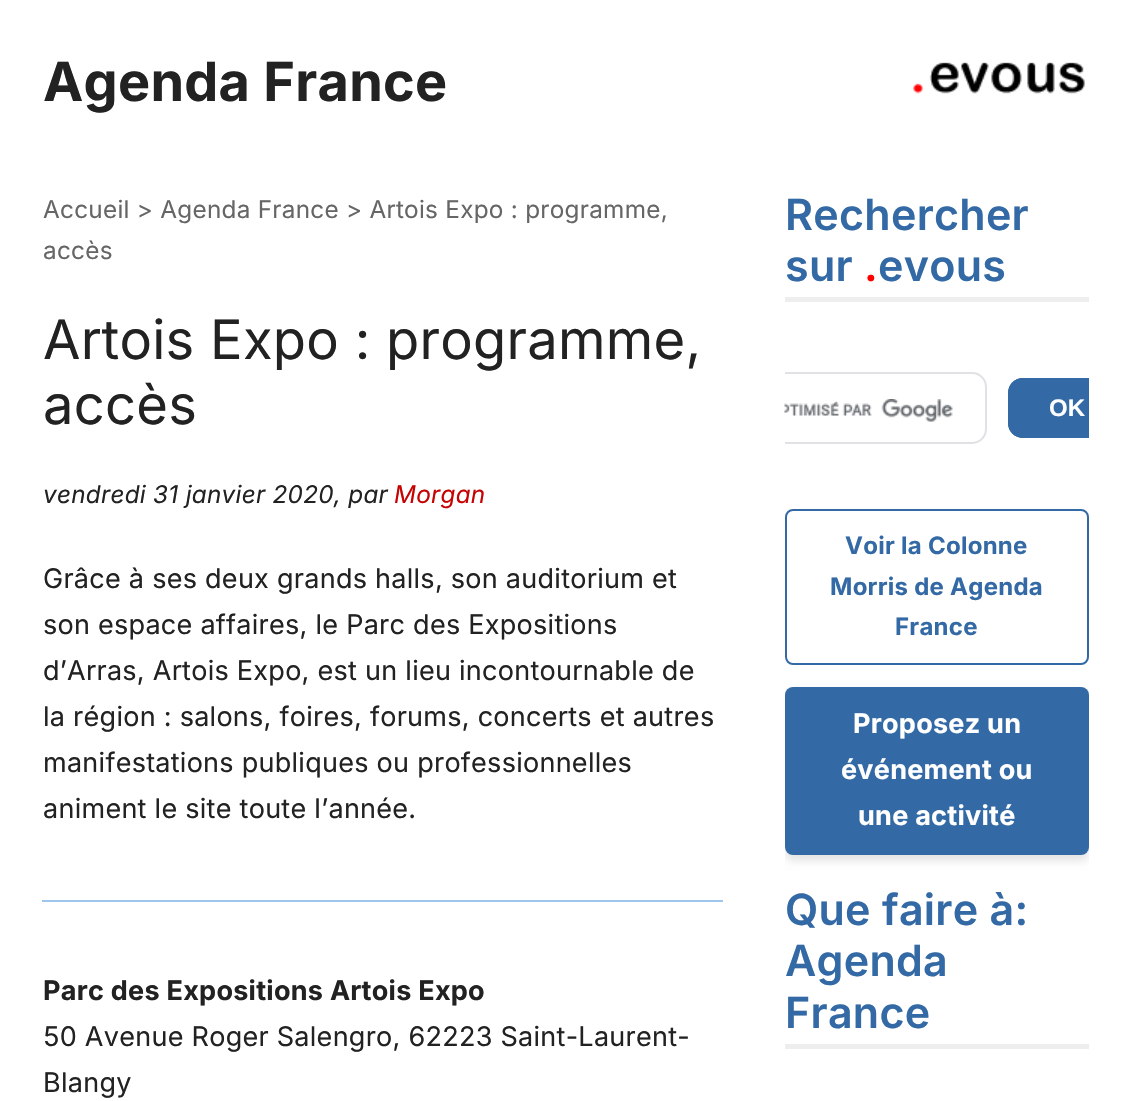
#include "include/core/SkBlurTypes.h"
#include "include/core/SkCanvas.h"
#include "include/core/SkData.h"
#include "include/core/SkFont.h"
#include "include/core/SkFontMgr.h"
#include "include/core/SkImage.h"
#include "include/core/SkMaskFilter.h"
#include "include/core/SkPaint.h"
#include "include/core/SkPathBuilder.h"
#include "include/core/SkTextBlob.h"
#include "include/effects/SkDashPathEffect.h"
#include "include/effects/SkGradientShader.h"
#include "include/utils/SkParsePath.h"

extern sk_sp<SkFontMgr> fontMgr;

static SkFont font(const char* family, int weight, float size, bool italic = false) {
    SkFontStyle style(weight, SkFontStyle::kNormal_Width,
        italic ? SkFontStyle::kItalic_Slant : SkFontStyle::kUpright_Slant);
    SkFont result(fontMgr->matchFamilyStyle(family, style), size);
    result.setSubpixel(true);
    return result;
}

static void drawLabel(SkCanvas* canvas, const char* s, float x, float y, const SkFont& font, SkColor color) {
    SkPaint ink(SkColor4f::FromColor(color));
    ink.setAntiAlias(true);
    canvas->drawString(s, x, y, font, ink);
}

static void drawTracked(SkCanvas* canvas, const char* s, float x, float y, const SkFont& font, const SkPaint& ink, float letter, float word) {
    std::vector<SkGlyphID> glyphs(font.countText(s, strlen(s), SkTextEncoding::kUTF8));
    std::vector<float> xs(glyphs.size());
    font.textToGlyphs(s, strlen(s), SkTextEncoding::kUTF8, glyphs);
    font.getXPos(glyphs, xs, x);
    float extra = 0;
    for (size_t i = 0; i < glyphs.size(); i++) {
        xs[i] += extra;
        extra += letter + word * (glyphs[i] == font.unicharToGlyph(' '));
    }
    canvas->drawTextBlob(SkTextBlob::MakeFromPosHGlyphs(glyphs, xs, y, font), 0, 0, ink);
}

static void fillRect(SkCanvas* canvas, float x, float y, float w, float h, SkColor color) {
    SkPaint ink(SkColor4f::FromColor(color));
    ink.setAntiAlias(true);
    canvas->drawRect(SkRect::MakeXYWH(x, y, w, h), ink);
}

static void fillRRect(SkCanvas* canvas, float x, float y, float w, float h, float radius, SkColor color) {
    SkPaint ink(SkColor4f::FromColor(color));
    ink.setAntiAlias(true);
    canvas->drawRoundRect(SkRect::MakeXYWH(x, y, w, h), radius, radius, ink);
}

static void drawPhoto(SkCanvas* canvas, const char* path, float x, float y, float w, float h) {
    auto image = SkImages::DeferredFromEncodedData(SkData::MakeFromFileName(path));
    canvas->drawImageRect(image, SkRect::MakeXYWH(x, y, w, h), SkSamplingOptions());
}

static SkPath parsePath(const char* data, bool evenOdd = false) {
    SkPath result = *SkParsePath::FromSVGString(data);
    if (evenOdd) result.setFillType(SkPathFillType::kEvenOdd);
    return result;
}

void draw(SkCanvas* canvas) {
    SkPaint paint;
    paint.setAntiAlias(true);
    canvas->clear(0xFFFFFFFF);
    SkFont font1 = font("Inter", 700, 54);
    paint.setColor(0xFF222222);
    drawTracked(canvas, "Agenda France", 43, 101, font1, paint, 0.27f, 0);
    drawPhoto(canvas, "assets/img1.png", 913, 62, 172, 32);
    SkFont font2 = font("Inter", 400, 24.3f);
    paint.setColor(0xFF666666);
    drawTracked(canvas, "Accueil > Agenda France > Artois Expo : programme,", 43, 218, font2, paint, 0.27f, 0);
    drawTracked(canvas, "accès", 43, 259, font2, paint, 0.27f, 0);
    SkFont font3 = font("Inter", 400, 54.25f);
    paint.setColor(0xFF222222);
    drawTracked(canvas, "Artois Expo : programme,", 43, 359, font3, paint, 0.27f, 0);
    drawTracked(canvas, "accès", 43, 424, font3, paint, 0.27f, 0);
    SkFont font4 = font("Inter", 400, 24.3f, true);
    drawTracked(canvas, "vendredi 31 janvier 2020, par", 43, 503, font4, paint, 0.27f, 0);
    paint.setColor(0xFFC60303);
    drawTracked(canvas, "Morgan", 394, 503, font4, paint, 0.27f, 0);
    SkFont font5 = font("Inter", 400, 27);
    paint.setColor(0xFF222222);
    drawTracked(canvas, "Grâce à ses deux grands halls, son auditorium et", 43, 588, font5, paint, 0.27f, 0);
    drawTracked(canvas, "son espace affaires, le Parc des Expositions", 43, 634, font5, paint, 0.27f, 0);
    drawTracked(canvas, "d’Arras, Artois Expo, est un lieu incontournable de", 43, 680, font5, paint, 0.27f, 0);
    drawTracked(canvas, "la région : salons, foires, forums, concerts et autres", 43, 726, font5, paint, 0.27f, 0);
    drawTracked(canvas, "manifestations publiques ou professionnelles", 43, 772, font5, paint, 0.27f, 0);
    drawTracked(canvas, "animent le site toute l’année.", 43, 818, font5, paint, 0.27f, 0);
    fillRect(canvas, 42, 900, 681, 2, 0xFF9FC6EB);
    SkFont font6 = font("Inter", 700, 27);
    drawTracked(canvas, "Parc des Expositions Artois Expo", 43, 1000, font6, paint, 0.27f, 0);
    drawTracked(canvas, "50 Avenue Roger Salengro, 62223 Saint-Laurent-", 43, 1046, font5, paint, 0.27f, 0);
    drawTracked(canvas, "Blangy", 43, 1092, font5, paint, 0.27f, 0);
    fillRect(canvas, 785, 297, 304, 5, 0xFFEEEEEE);
    SkFont font7 = font("Inter", 600, 43);
    paint.setColor(0xFF3369A4);
    drawTracked(canvas, "Rechercher", 785, 230, font7, paint, 0.27f, 0);
    drawTracked(canvas, "sur", 785, 281, font7, paint, 0.27f, 0);
    paint.setColor(0xFFFF0000);
    drawTracked(canvas, ".", 864, 281, font7, paint, 0.27f, 0);
    paint.setColor(0xFF3369A4);
    drawTracked(canvas, "evous", 878, 281, font7, paint, 0.27f, 0);
    canvas->save();
    canvas->clipRect(SkRect::MakeXYWH(785, 189, 304, 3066));
    paint.setStroke(true);
    paint.setStrokeWidth(2);
    paint.setColor(0xFFDFE1E5);
    canvas->drawRoundRect(SkRect::MakeXYWH(748, 373, 238, 70), 14, 14, paint);
    canvas->restore();
    drawPhoto(canvas, "assets/img2.png", 784, 399, 169, 23);
    paint.setStroke(false);
    paint.setColor(0xFF3369A4);
    canvas->drawPath(parsePath("M1023 378H1089V438H1023C1014.5 438 1008 431.5 1008 423V393C1008 384.5 1014.5 378 1023 378Z"), paint);
    canvas->save();
    canvas->clipRect(SkRect::MakeXYWH(785, 189, 304, 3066));
    paint.setStroke(true);
    canvas->drawRoundRect(SkRect::MakeXYWH(1009, 379, 118, 58), 14, 14, paint);
    canvas->restore();
    SkFont font8 = font("Liberation Sans", 700, 24);
    drawLabel(canvas, "OK", 1049, 416, font8, 0xFFFFFFFF);
    canvas->drawRoundRect(SkRect::MakeXYWH(786, 510, 302, 154), 7, 7, paint);
    SkFont font9 = font("Inter", 700, 24);
    paint.setStroke(false);
    drawTracked(canvas, "Voir la Colonne", 845, 554, font9, paint, 0.27f, 0);
    drawTracked(canvas, "Morris de Agenda", 830, 595, font9, paint, 0.27f, 0);
    drawTracked(canvas, "France", 895, 635, font9, paint, 0.27f, 0);
    canvas->save();
    canvas->clipRect(SkRect::MakeXYWH(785, 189, 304, 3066));
    paint.setColor(0x1A000000);
    paint.setMaskFilter(SkMaskFilter::MakeBlur(kNormal_SkBlurStyle, 4.5f));
    canvas->drawRoundRect(SkRect::MakeXYWH(785, 693, 304, 168), 8, 8, paint);
    paint.setMaskFilter(nullptr);
    canvas->restore();
    fillRRect(canvas, 785, 687, 304, 168, 8, 0xFF3369A4);
    paint.setColor(0xFFFFFFFF);
    drawTracked(canvas, "Proposez un", 853, 733, font6, paint, 0.27f, 0);
    drawTracked(canvas, "événement ou", 841, 779, font6, paint, 0.27f, 0);
    drawTracked(canvas, "une activité", 858, 825, font6, paint, 0.27f, 0);
    fillRect(canvas, 785, 1044, 304, 5, 0xFFEEEEEE);
    paint.setColor(0xFF3369A4);
    drawTracked(canvas, "Que faire à:", 785, 925, font7, paint, 0.27f, 0);
    drawTracked(canvas, "Agenda", 785, 976, font7, paint, 0.27f, 0);
    drawTracked(canvas, "France", 785, 1028, font7, paint, 0.27f, 0);
}
